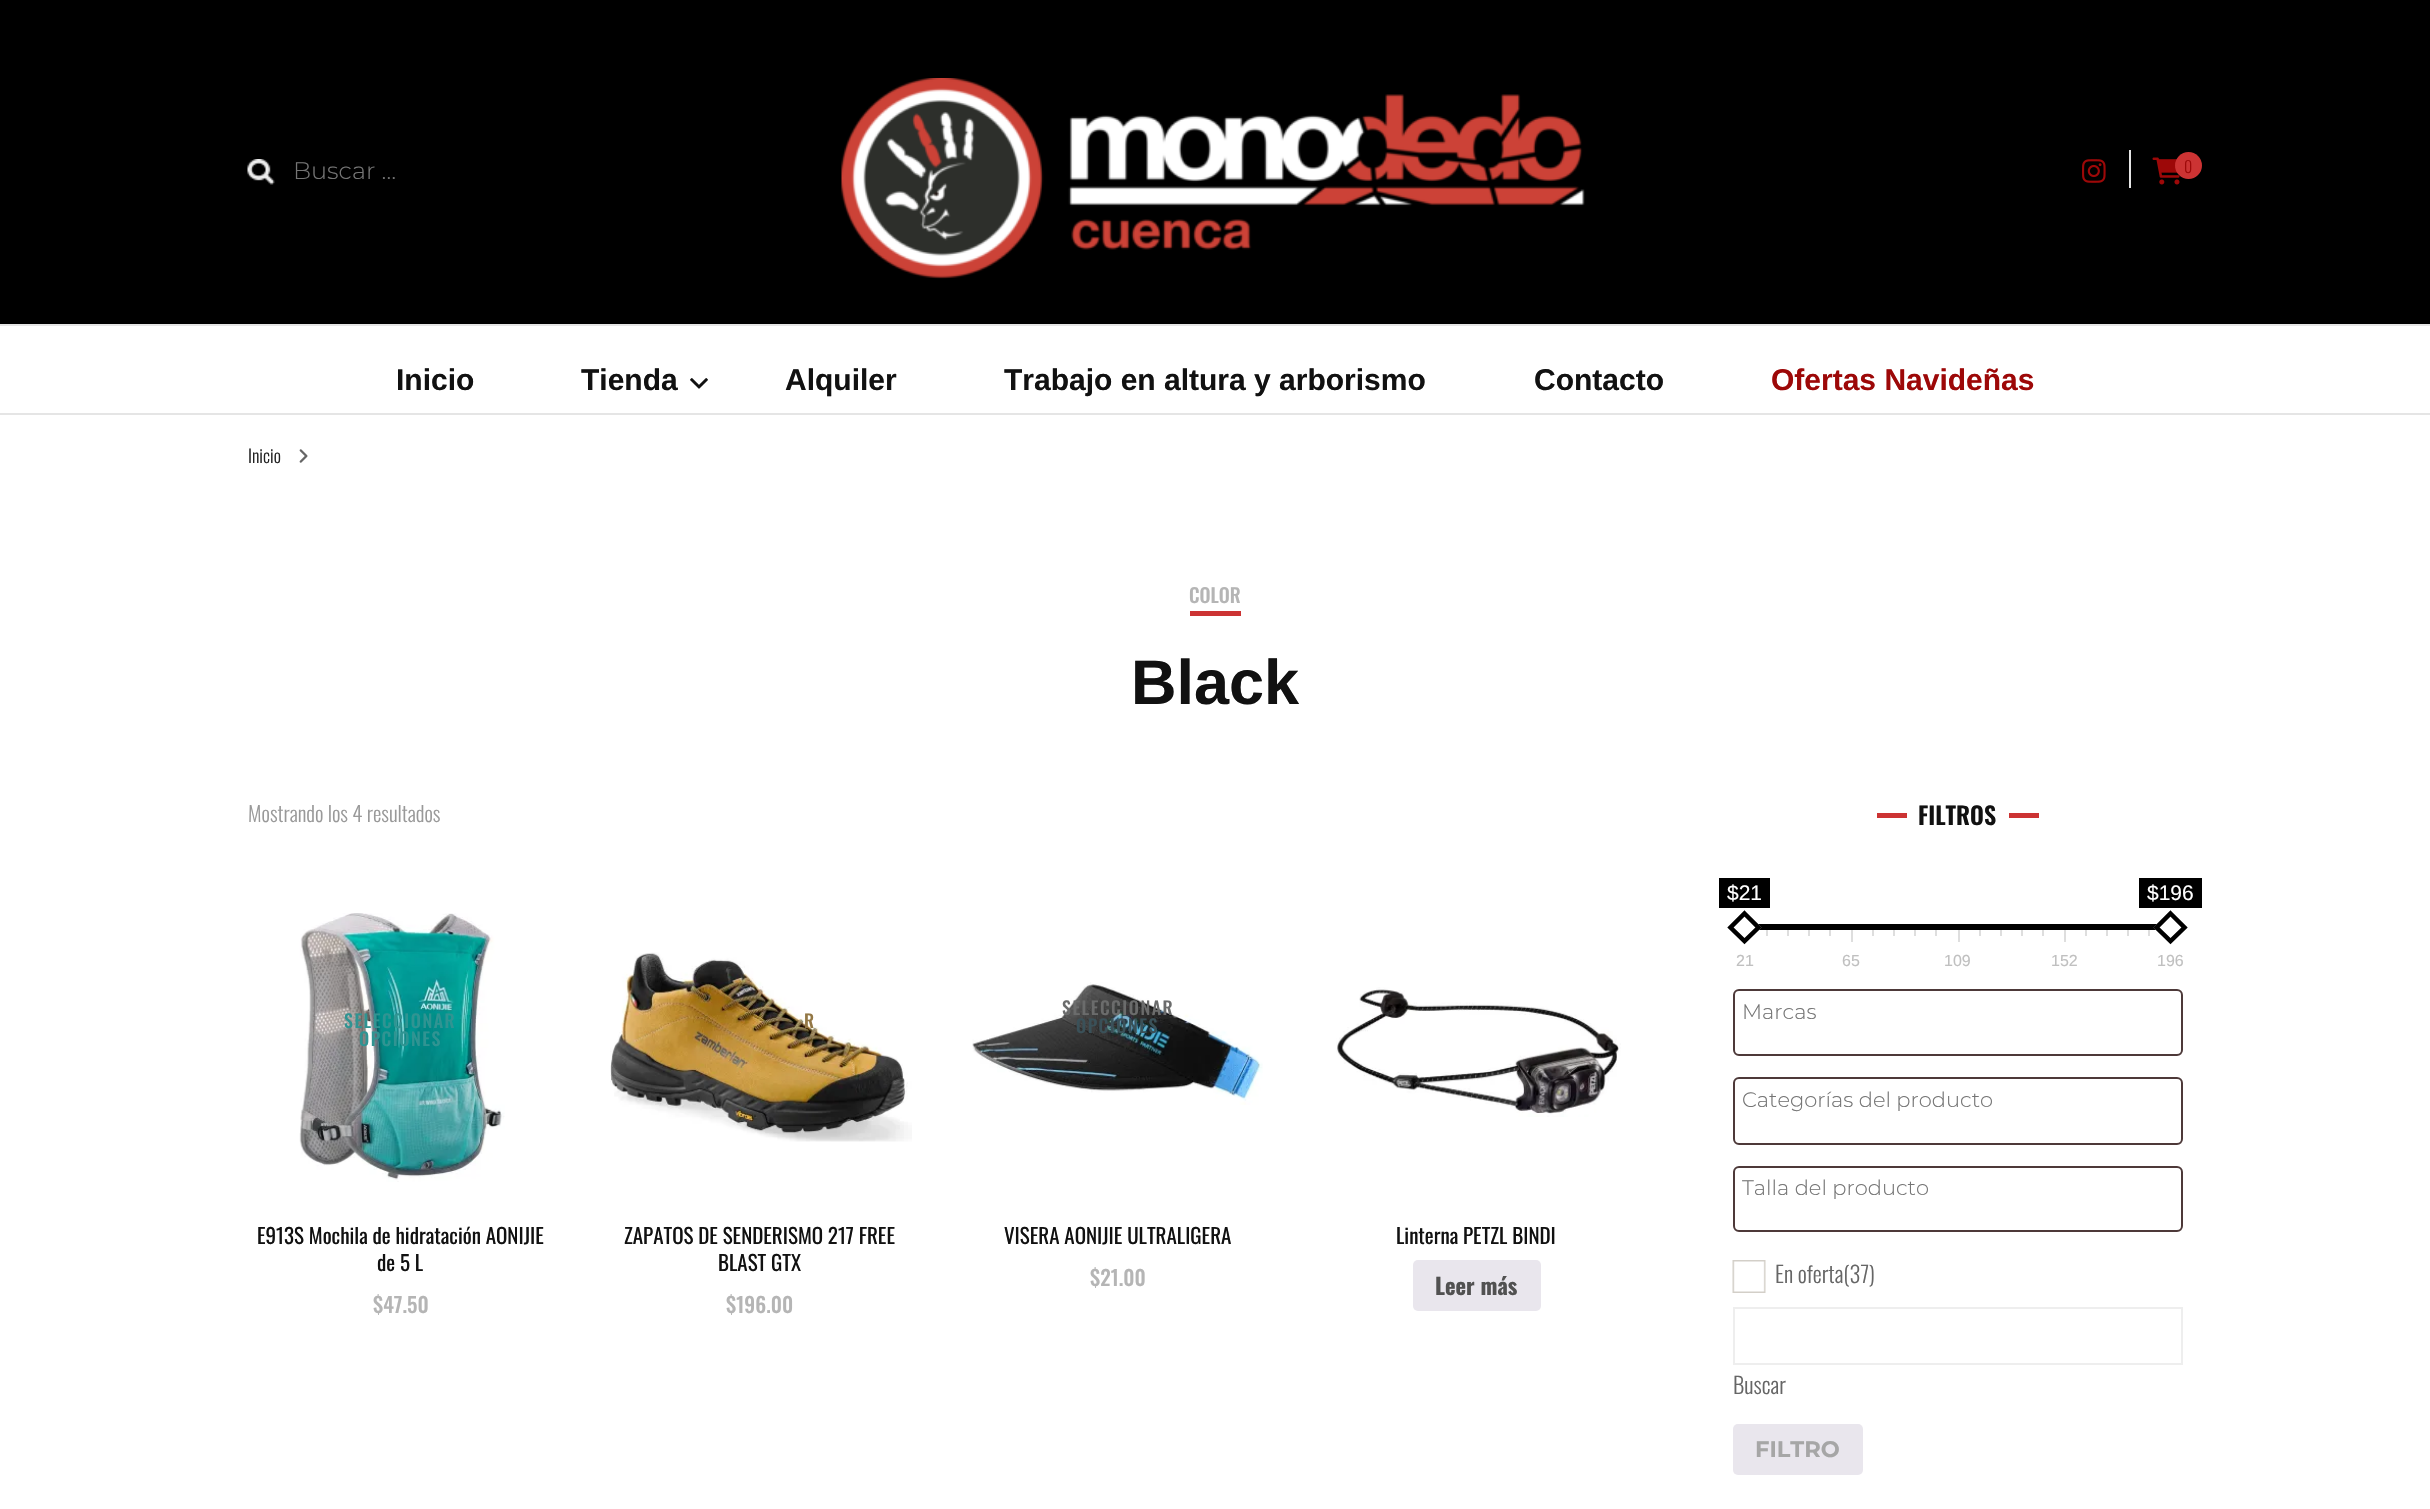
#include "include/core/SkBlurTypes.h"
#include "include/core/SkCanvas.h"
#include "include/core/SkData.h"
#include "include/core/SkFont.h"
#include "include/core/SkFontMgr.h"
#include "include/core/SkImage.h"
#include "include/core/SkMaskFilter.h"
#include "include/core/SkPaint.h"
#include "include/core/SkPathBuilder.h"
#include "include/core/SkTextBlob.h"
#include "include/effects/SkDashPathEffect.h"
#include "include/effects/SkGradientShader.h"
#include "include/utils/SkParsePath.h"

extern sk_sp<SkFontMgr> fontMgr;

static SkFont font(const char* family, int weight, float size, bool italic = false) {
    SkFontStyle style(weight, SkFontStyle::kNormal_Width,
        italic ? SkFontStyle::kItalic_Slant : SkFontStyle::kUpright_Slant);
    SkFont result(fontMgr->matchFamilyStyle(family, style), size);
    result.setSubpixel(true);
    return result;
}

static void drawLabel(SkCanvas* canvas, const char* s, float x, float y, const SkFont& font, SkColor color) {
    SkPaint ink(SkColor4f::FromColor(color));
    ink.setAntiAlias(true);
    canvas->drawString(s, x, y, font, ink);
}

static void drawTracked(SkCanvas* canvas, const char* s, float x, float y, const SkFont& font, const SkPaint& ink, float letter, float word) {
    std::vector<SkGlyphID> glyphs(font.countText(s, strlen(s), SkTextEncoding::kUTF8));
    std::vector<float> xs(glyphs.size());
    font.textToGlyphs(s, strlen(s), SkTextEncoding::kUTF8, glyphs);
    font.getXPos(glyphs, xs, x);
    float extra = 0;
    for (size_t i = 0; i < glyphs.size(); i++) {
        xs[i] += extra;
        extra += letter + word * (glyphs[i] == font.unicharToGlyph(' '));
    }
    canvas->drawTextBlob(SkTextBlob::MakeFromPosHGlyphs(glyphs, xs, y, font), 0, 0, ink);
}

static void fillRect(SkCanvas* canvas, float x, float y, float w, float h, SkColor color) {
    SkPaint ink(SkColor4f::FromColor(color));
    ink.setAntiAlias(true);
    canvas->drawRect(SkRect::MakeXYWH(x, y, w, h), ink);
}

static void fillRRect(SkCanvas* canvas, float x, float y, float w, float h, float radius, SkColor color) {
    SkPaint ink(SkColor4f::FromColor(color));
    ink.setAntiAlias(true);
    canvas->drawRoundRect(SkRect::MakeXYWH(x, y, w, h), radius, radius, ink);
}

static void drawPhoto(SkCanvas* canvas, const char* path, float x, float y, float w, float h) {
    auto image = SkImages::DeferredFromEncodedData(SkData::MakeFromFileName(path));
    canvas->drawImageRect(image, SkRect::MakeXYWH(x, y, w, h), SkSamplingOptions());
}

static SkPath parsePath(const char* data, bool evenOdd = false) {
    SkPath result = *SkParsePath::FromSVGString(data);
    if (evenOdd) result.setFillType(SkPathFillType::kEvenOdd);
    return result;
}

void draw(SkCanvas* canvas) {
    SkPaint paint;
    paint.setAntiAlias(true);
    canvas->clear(0xFFFFFFFF);
    fillRect(canvas, 0, 0, 2430, 324, 0xFF000000);
    drawPhoto(canvas, "assets/img1.png", 247, 159, 28, 26);
    SkFont font1 = font("Montserrat", 300, 24);
    drawLabel(canvas, "Buscar …", 293, 179, font1, 0xFF757575);
    drawPhoto(canvas, "assets/img2.png", 841, 78, 744, 201);
    drawPhoto(canvas, "assets/img3.png", 2082, 159, 24, 24);
    fillRect(canvas, 2129, 150, 2, 38, 0xFFE5E5E5);
    drawPhoto(canvas, "assets/img4.png", 2152, 157, 28, 28);
    paint.setColor(0xFFCC3333);
    canvas->drawCircle(2188.5f, 165.5f, 13.5f, paint);
    SkFont font2 = font("Oswald", 300, 16);
    drawLabel(canvas, "0", 2184, 173, font2, 0xFF9D0808);
    fillRect(canvas, 0, 324, 2430, 2, 0xFFE5E5E5);
    fillRect(canvas, 0, 413, 2430, 2, 0xFFE5E5E5);
    SkFont font3 = font("Liberation Sans", 700, 30);
    drawLabel(canvas, "Inicio", 396, 390, font3, 0xFF111111);
    drawLabel(canvas, "Tienda", 581, 390, font3, 0xFF111111);
    drawPhoto(canvas, "assets/img5.png", 690, 378, 18, 11);
    drawLabel(canvas, "Alquiler", 785, 390, font3, 0xFF111111);
    drawLabel(canvas, "Trabajo en altura y arborismo", 1004, 390, font3, 0xFF111111);
    drawLabel(canvas, "Contacto", 1534, 390, font3, 0xFF111111);
    drawLabel(canvas, "Ofertas Navideñas", 1771, 390, font3, 0xFF9D0808);
    SkFont font4 = font("Oswald", 300, 18);
    drawLabel(canvas, "Inicio", 248, 463, font4, 0xFF222222);
    drawPhoto(canvas, "assets/img6.png", 299, 449, 9, 14);
    fillRect(canvas, 1190, 611, 51, 5, 0xFFCC3333);
    SkFont font5 = font("Oswald", 500, 19.5f);
    drawLabel(canvas, "COLOR", 1189, 603, font5, 0xFFB5B5B5);
    SkFont font6 = font("Liberation Sans", 700, 63);
    drawLabel(canvas, "Black", 1131, 704, font6, 0xFF111111);
    SkFont font7 = font("Oswald", 300, 21);
    drawLabel(canvas, "Mostrando los 4 resultados", 248, 822, font7, 0xFF999999);
    drawPhoto(canvas, "assets/img7.png", 299, 913, 206, 269);
    SkFont font8 = font("Oswald", 500, 18);
    paint.setColor(0xFF309492);
    drawTracked(canvas, "SELECCIONAR", 344, 1028, font8, paint, 1.5f, 0);
    drawTracked(canvas, "OPCIONES", 359, 1046, font8, paint, 1.5f, 0);
    SkFont font9 = font("Oswald", 400, 21);
    drawLabel(canvas, "E913S Mochila de hidratación AONIJIE", 257, 1244, font9, 0xFF111111);
    drawLabel(canvas, "de 5 L", 377, 1271, font9, 0xFF111111);
    SkFont font10 = font("Oswald", 500, 21);
    drawLabel(canvas, "$47.50", 373, 1313, font10, 0xFFB5B5B5);
    drawPhoto(canvas, "assets/img8.png", 610, 952, 302, 190);
    paint.setColor(0xFF937745);
    drawTracked(canvas, "R", 804, 1028, font8, paint, 1.5f, 0);
    drawLabel(canvas, "ZAPATOS DE SENDERISMO 217 FREE", 624, 1244, font9, 0xFF111111);
    drawLabel(canvas, "BLAST GTX", 718, 1271, font9, 0xFF111111);
    drawLabel(canvas, "$196.00", 726, 1313, font10, 0xFFB5B5B5);
    drawPhoto(canvas, "assets/img9.png", 972, 982, 291, 123);
    paint.setColor(0xFF6B6C6C);
    drawTracked(canvas, "SELECCIONAR", 1062, 1015, font8, paint, 1.5f, 0);
    paint.setColor(0xFF3A5159);
    drawTracked(canvas, "OPCIONES", 1076, 1033, font8, paint, 1.5f, 0);
    drawLabel(canvas, "VISERA AONIJIE ULTRALIGERA", 1004, 1244, font9, 0xFF111111);
    drawLabel(canvas, "$21.00", 1090, 1286, font10, 0xFFB5B5B5);
    drawPhoto(canvas, "assets/img10.png", 1336, 987, 285, 130);
    drawLabel(canvas, "Linterna PETZL BINDI", 1396, 1244, font9, 0xFF111111);
    fillRRect(canvas, 1413, 1260, 128, 51, 5, 0xFFE9E6ED);
    SkFont font11 = font("Oswald", 700, 22.5f);
    drawLabel(canvas, "Leer más", 1435, 1295, font11, 0xFF515151);
    fillRect(canvas, 1877, 813, 30, 5, 0xFFCC3333);
    SkFont font12 = font("Oswald", 600, 24);
    drawLabel(canvas, "FILTROS", 1918, 825, font12, 0xFF111111);
    fillRect(canvas, 2009, 813, 30, 5, 0xFFCC3333);
    fillRect(canvas, 1719, 878, 51, 30, 0xFF000000);
    SkFont font13 = font("Liberation Sans", 400, 21);
    drawLabel(canvas, "$21", 1727, 900, font13, 0xFFFFFFFF);
    fillRect(canvas, 2139, 878, 63, 30, 0xFF000000);
    drawLabel(canvas, "$196", 2147, 900, font13, 0xFFFFFFFF);
    fillRect(canvas, 1758, 924, 399, 6, 0xFF000000);
    paint.setColor(0xFFFFFFFF);
    canvas->drawPath(parsePath("M1744.5 910.5L1761.5 927.5L1744.5 944.5L1727.5 927.5Z"), paint);
    paint.setStroke(true);
    paint.setStrokeWidth(4.5f);
    paint.setColor(0xFF000000);
    canvas->drawPath(parsePath("M1744.5 913.5L1758.5 927.5L1744.5 941L1730.5 927.5Z"), paint);
    paint.setStroke(false);
    paint.setColor(0xFFFFFFFF);
    canvas->drawPath(parsePath("M2170.5 910.5L2187.5 927.5L2170.5 944.5L2153.5 927.5Z"), paint);
    paint.setStroke(true);
    paint.setColor(0xFF000000);
    canvas->drawPath(parsePath("M2170.5 913.5L2184.5 927.5L2170.5 941L2156.5 927.5Z"), paint);
    fillRect(canvas, 1766, 930, 2, 6, 0xFFDEDEDE);
    fillRect(canvas, 1787, 930, 2, 6, 0xFFDEDEDE);
    fillRect(canvas, 1808, 930, 2, 6, 0xFFDEDEDE);
    fillRect(canvas, 1829, 930, 2, 6, 0xFFDEDEDE);
    fillRect(canvas, 1851, 930, 2, 12, 0xFFDEDEDE);
    fillRect(canvas, 1872, 930, 2, 6, 0xFFDEDEDE);
    fillRect(canvas, 1893, 930, 2, 6, 0xFFDEDEDE);
    fillRect(canvas, 1914, 930, 2, 6, 0xFFDEDEDE);
    fillRect(canvas, 1935, 930, 2, 6, 0xFFDEDEDE);
    fillRect(canvas, 1958, 930, 2, 12, 0xFFDEDEDE);
    fillRect(canvas, 1979, 930, 2, 6, 0xFFDEDEDE);
    fillRect(canvas, 2000, 930, 2, 6, 0xFFDEDEDE);
    fillRect(canvas, 2021, 930, 2, 6, 0xFFDEDEDE);
    fillRect(canvas, 2042, 930, 2, 6, 0xFFDEDEDE);
    fillRect(canvas, 2064, 930, 2, 12, 0xFFDEDEDE);
    fillRect(canvas, 2085, 930, 2, 6, 0xFFDEDEDE);
    fillRect(canvas, 2106, 930, 2, 6, 0xFFDEDEDE);
    fillRect(canvas, 2127, 930, 2, 6, 0xFFDEDEDE);
    fillRect(canvas, 2148, 930, 2, 6, 0xFFDEDEDE);
    SkFont font14 = font("Liberation Sans", 400, 16);
    drawLabel(canvas, "21", 1736, 966, font14, 0xFFC0C0C0);
    drawLabel(canvas, "65", 1842, 966, font14, 0xFFC0C0C0);
    drawLabel(canvas, "109", 1944, 966, font14, 0xFFC0C0C0);
    drawLabel(canvas, "152", 2051, 966, font14, 0xFFC0C0C0);
    drawLabel(canvas, "196", 2157, 966, font14, 0xFFC0C0C0);
    paint.setStrokeWidth(2);
    paint.setColor(0xFF4D3939);
    canvas->drawRoundRect(SkRect::MakeXYWH(1734, 990, 448, 65), 5, 5, paint);
    SkFont font15 = font("Montserrat", 300, 21);
    drawLabel(canvas, "Marcas", 1742, 1019, font15, 0xFF757575);
    canvas->drawRoundRect(SkRect::MakeXYWH(1734, 1078, 448, 66), 5, 5, paint);
    drawLabel(canvas, "Categorías del producto", 1742, 1107, font15, 0xFF757575);
    canvas->drawRoundRect(SkRect::MakeXYWH(1734, 1167, 448, 64), 5, 5, paint);
    drawLabel(canvas, "Talla del producto", 1742, 1195, font15, 0xFF757575);
    drawPhoto(canvas, "assets/img11.png", 1732, 1260, 34, 33);
    SkFont font16 = font("Oswald", 300, 22.5f);
    drawLabel(canvas, "En oferta(37)", 1775, 1283, font16, 0xFF666666);
    paint.setColor(0xFFEEEEEE);
    canvas->drawRect(SkRect::MakeXYWH(1734, 1308, 448, 56), paint);
    drawLabel(canvas, "Buscar", 1733, 1394, font16, 0xFF666666);
    fillRRect(canvas, 1733, 1424, 130, 51, 5, 0xFFE9E6ED);
    SkFont font17 = font("Montserrat", 700, 22.5f);
    drawLabel(canvas, "FILTRO", 1755, 1457, font17, 0xFFA6A6A6);
}
